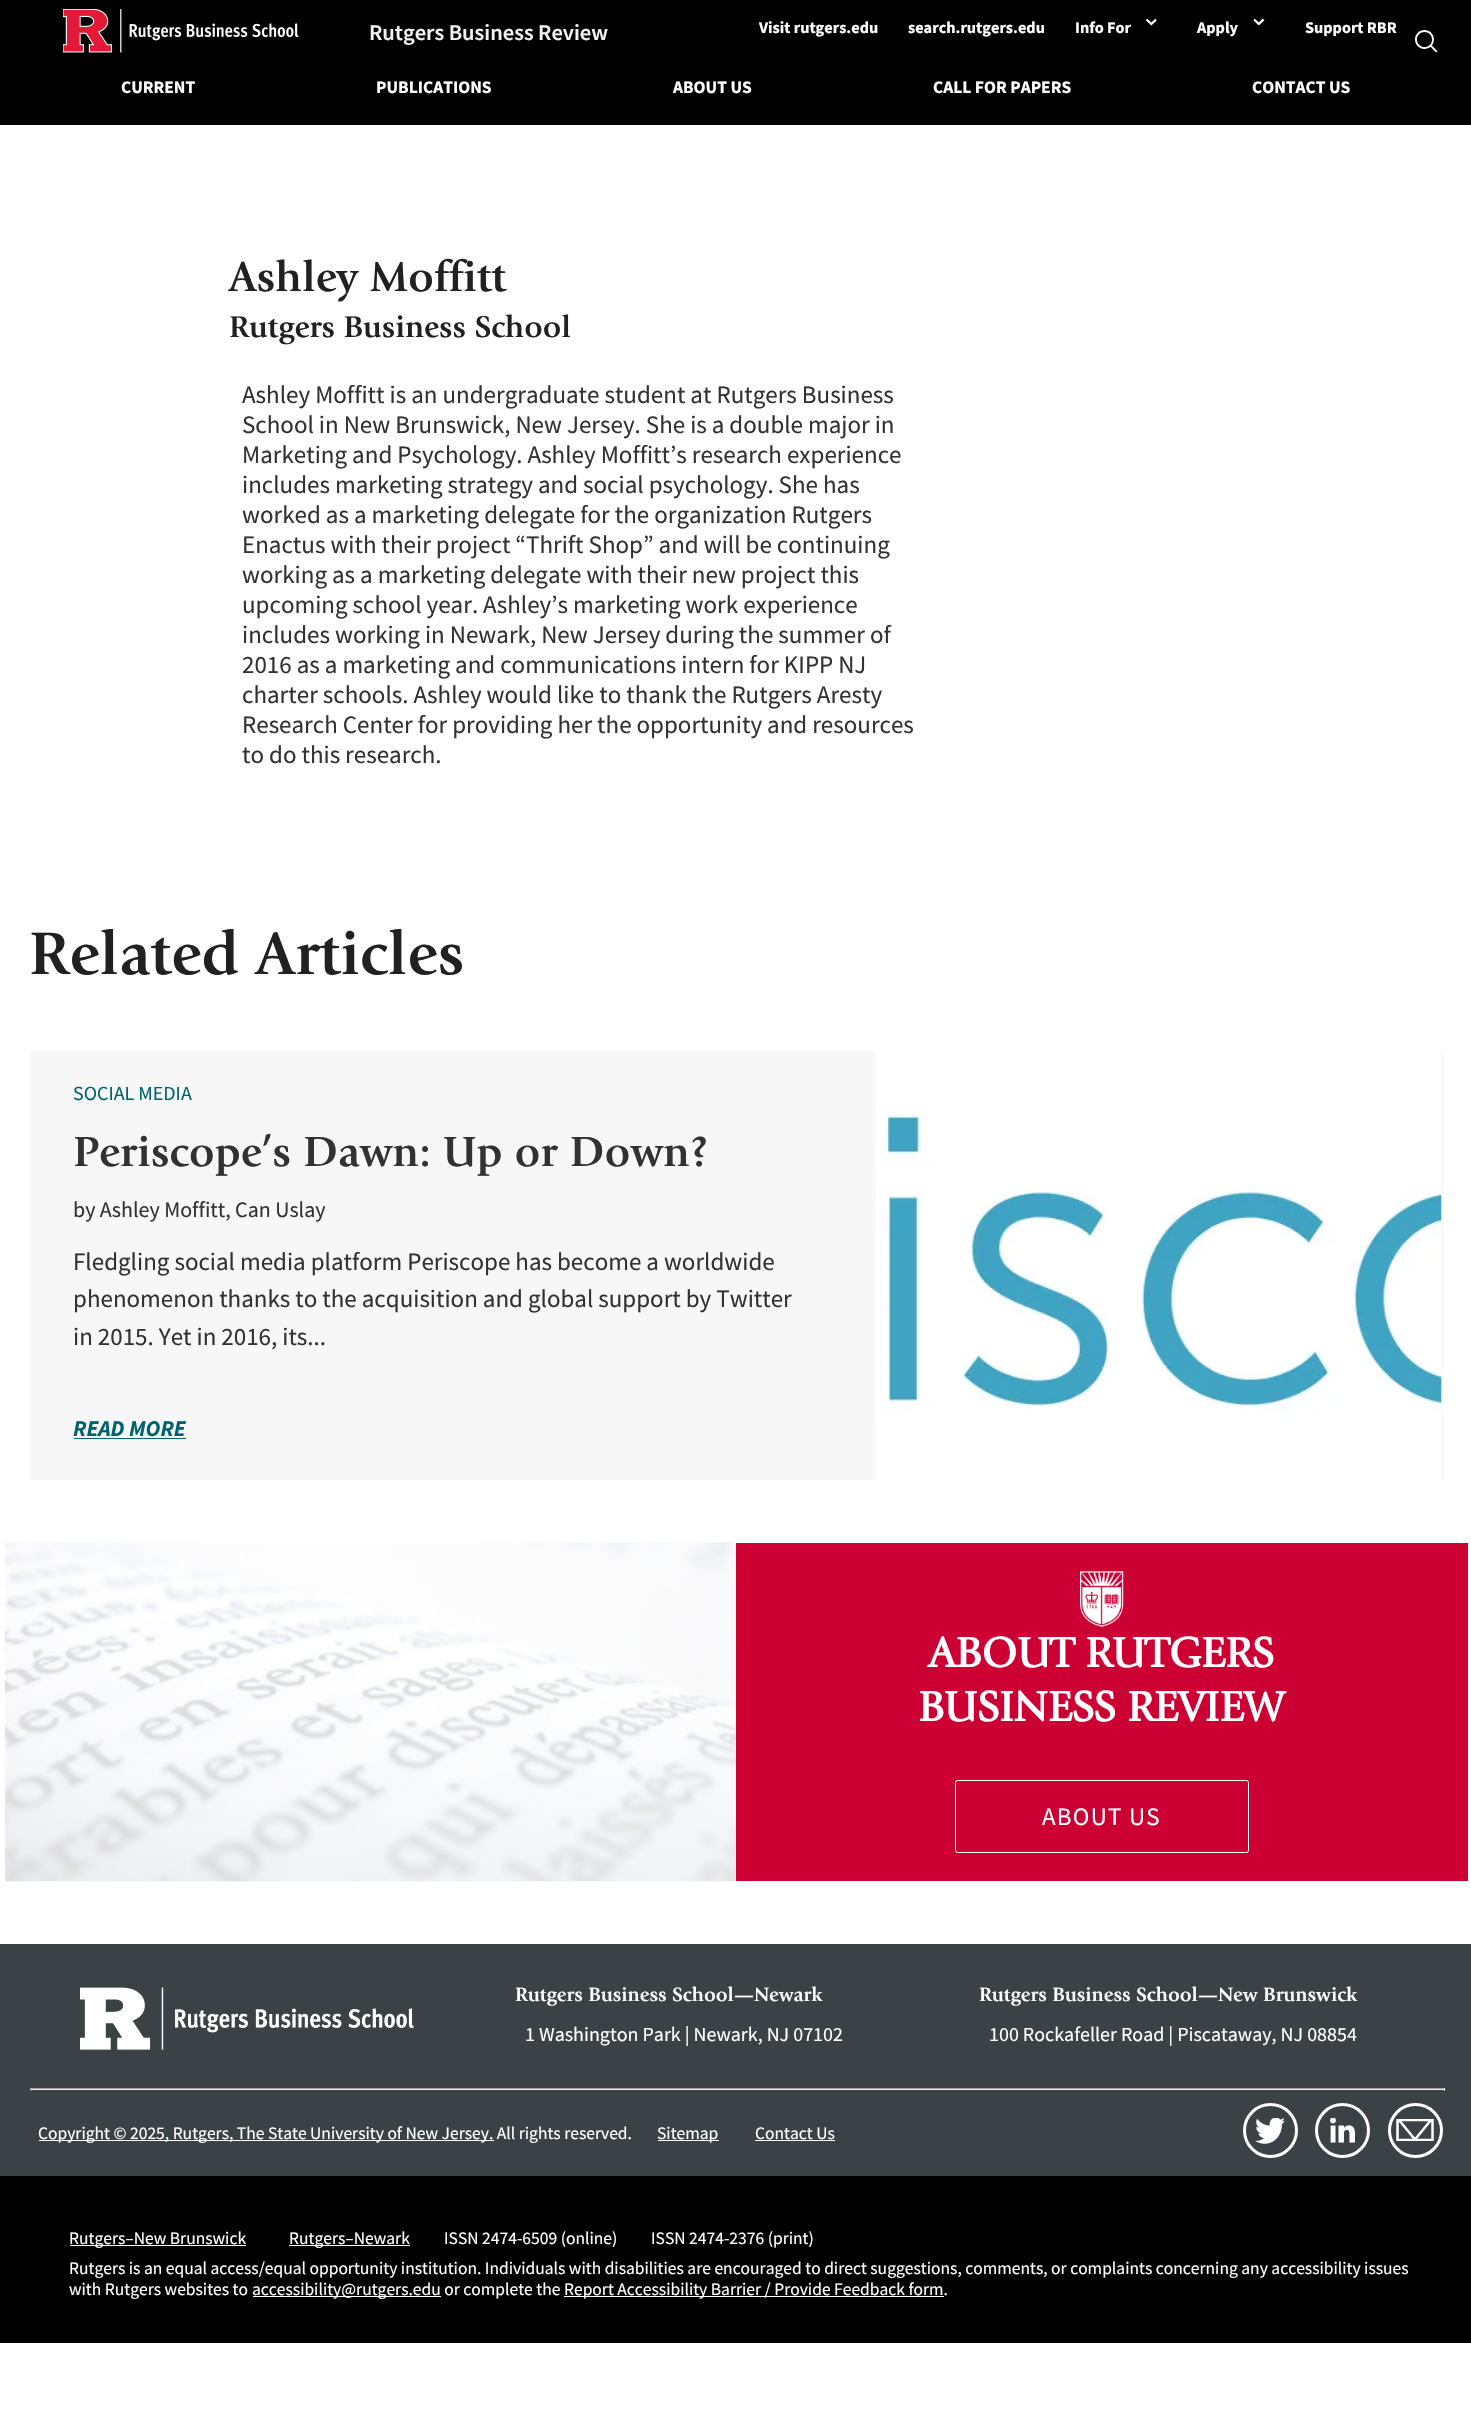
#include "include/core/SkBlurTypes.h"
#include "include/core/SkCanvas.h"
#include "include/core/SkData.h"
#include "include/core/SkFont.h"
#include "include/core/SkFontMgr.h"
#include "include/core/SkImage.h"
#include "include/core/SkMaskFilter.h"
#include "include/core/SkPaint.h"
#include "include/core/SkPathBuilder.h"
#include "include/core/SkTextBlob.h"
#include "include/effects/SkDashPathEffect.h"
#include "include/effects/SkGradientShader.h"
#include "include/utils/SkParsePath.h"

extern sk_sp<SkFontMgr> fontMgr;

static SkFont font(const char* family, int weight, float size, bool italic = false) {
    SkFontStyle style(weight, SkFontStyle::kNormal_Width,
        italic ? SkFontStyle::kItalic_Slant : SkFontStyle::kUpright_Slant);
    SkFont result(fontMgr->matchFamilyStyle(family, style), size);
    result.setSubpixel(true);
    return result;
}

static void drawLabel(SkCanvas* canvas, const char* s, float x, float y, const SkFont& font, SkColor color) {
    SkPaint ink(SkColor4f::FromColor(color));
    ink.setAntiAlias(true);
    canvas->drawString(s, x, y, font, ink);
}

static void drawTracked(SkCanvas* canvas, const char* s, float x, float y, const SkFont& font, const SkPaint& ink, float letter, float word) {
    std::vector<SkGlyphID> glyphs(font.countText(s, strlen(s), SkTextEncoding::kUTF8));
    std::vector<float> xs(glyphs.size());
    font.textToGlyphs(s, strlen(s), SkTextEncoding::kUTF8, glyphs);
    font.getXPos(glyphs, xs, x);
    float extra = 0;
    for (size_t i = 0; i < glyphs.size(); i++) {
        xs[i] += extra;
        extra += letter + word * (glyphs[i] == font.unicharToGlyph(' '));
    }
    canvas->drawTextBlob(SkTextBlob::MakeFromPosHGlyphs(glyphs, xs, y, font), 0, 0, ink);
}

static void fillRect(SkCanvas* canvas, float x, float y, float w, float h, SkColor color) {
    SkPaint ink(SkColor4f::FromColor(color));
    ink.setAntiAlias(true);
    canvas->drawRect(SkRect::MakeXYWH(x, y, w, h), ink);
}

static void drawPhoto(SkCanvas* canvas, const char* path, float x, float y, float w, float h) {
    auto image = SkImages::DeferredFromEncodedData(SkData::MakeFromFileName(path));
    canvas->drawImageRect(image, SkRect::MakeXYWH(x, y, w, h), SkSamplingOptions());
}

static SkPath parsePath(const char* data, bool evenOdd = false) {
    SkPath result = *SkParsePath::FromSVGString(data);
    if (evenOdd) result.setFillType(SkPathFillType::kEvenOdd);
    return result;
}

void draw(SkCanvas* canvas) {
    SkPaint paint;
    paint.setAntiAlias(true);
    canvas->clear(0xFFFFFFFF);
    fillRect(canvas, 0, 0, 1471, 125, 0xFF000000);
    drawPhoto(canvas, "assets/img1.png", 63, 9, 236, 44);
    SkFont font1 = font("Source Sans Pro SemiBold", 600, 22.5f);
    drawLabel(canvas, "Rutgers Business Review", 369, 40, font1, 0xFFF2F2F2);
    SkFont font2 = font("Source Sans Pro", 700, 16.25f);
    drawLabel(canvas, "Visit rutgers.edu", 759, 33, font2, 0xFFFFFFFF);
    drawLabel(canvas, "search.rutgers.edu", 908, 33, font2, 0xFFFFFFFF);
    drawLabel(canvas, "Info For", 1075, 33, font2, 0xFFFFFFFF);
    drawPhoto(canvas, "assets/img2.png", 1145, 18, 12, 8);
    drawLabel(canvas, "Apply", 1197, 33, font2, 0xFFFFFFFF);
    drawPhoto(canvas, "assets/img3.png", 1253, 18, 12, 8);
    drawLabel(canvas, "Support RBR", 1305, 33, font2, 0xFFFFFFFF);
    drawPhoto(canvas, "assets/img4.png", 1415, 30, 23, 23);
    SkFont font3 = font("Source Sans Pro", 700, 17.5f);
    drawLabel(canvas, "CURRENT", 121, 93, font3, 0xFFFFFFFF);
    drawLabel(canvas, "PUBLICATIONS", 376, 93, font3, 0xFFFFFFFF);
    drawLabel(canvas, "ABOUT US", 673, 93, font3, 0xFFFFFFFF);
    drawLabel(canvas, "CALL FOR PAPERS", 933, 93, font3, 0xFFFFFFFF);
    drawLabel(canvas, "CONTACT US", 1252, 93, font3, 0xFFFFFFFF);
    SkFont font4 = font("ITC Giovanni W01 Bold", 700, 43.75f);
    drawLabel(canvas, "Ashley Moffitt", 229, 291, font4, 0xFF212121);
    SkFont font5 = font("ITC Giovanni W01 Bold", 700, 31.25f);
    drawLabel(canvas, "Rutgers Business School", 229, 337, font5, 0xFF212121);
    SkFont font6 = font("Source Sans Pro", 400, 25);
    drawLabel(canvas, "Ashley Moffitt is an undergraduate student at Rutgers Business", 242, 403, font6, 0xFF323232);
    drawLabel(canvas, "School in New Brunswick, New Jersey. She is a double major in", 242, 433, font6, 0xFF323232);
    drawLabel(canvas, "Marketing and Psychology. Ashley Moffitt’s research experience", 242, 463, font6, 0xFF323232);
    drawLabel(canvas, "includes marketing strategy and social psychology. She has", 242, 493, font6, 0xFF323232);
    drawLabel(canvas, "worked as a marketing delegate for the organization Rutgers", 242, 523, font6, 0xFF323232);
    drawLabel(canvas, "Enactus with their project “Thrift Shop” and will be continuing", 242, 553, font6, 0xFF323232);
    drawLabel(canvas, "working as a marketing delegate with their new project this", 242, 583, font6, 0xFF323232);
    drawLabel(canvas, "upcoming school year. Ashley’s marketing work experience", 242, 613, font6, 0xFF323232);
    drawLabel(canvas, "includes working in Newark, New Jersey during the summer of", 242, 643, font6, 0xFF323232);
    drawLabel(canvas, "2016 as a marketing and communications intern for KIPP NJ", 242, 673, font6, 0xFF323232);
    drawLabel(canvas, "charter schools. Ashley would like to thank the Rutgers Aresty", 242, 703, font6, 0xFF323232);
    drawLabel(canvas, "Research Center for providing her the opportunity and resources", 242, 733, font6, 0xFF323232);
    drawLabel(canvas, "to do this research.", 242, 763, font6, 0xFF323232);
    SkFont font7 = font("ITC Giovanni W01 Bold", 700, 62.5f);
    drawLabel(canvas, "Related Articles", 29, 974, font7, 0xFF212121);
    fillRect(canvas, 30, 1051, 1413, 429, 0xFFF7F7F7);
    SkFont font8 = font("Source Sans Pro", 400, 20);
    drawLabel(canvas, "SOCIAL MEDIA", 73, 1100, font8, 0xFF00626D);
    drawLabel(canvas, "Periscope’s Dawn: Up or Down?", 73, 1166, font4, 0xFF323232);
    SkFont font9 = font("Source Sans Pro", 400, 22);
    drawLabel(canvas, "by Ashley Moffitt, Can Uslay", 73, 1217, font9, 0xFF323232);
    drawLabel(canvas, "Fledgling social media platform Periscope has become a worldwide", 73, 1270, font6, 0xFF323232);
    drawLabel(canvas, "phenomenon thanks to the acquisition and global support by Twitter", 73, 1307, font6, 0xFF323232);
    drawLabel(canvas, "in 2015. Yet in 2016, its...", 73, 1345, font6, 0xFF323232);
    SkFont font10 = font("Source Sans Pro", 700, 22.5f, true);
    drawLabel(canvas, "READ MORE", 73, 1436, font10, 0xFF00626D);
    fillRect(canvas, 74, 1438, 112, 1, 0xFF00626D);
    drawPhoto(canvas, "assets/img5.png", 875, 1051, 567, 429);
    drawPhoto(canvas, "assets/img6.png", 5, 1542, 731, 340);
    fillRect(canvas, 736, 1543, 732, 338, 0xFFCC0033);
    drawPhoto(canvas, "assets/img7.png", 1080, 1571, 44, 56);
    SkFont font11 = font("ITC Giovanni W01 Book", 700, 43.75f);
    drawLabel(canvas, "ABOUT RUTGERS", 928, 1667, font11, 0xFFFFFFFF);
    drawLabel(canvas, "BUSINESS REVIEW", 918, 1721, font11, 0xFFFFFFFF);
    paint.setStroke(true);
    paint.setStrokeWidth(1);
    paint.setColor(0xFFFFFFFF);
    canvas->drawRoundRect(SkRect::MakeXYWH(955.5f, 1780.5f, 293, 72), 2, 2, paint);
    paint.setStroke(false);
    drawTracked(canvas, "ABOUT US", 1042, 1825, font6, paint, 1.25f, 0);
    fillRect(canvas, 0, 1944, 1471, 232, 0xFF3A4246);
    drawPhoto(canvas, "assets/img8.png", 80, 1987, 334, 63);
    SkFont font12 = font("ITC Giovanni W01 Bold", 700, 20);
    drawLabel(canvas, "Rutgers Business School—Newark", 515, 2001, font12, 0xFFFFFFFF);
    drawLabel(canvas, "1 Washington Park | Newark, NJ 07102", 525, 2041, font8, 0xFFFFFFFF);
    drawLabel(canvas, "Rutgers Business School—New Brunswick", 979, 2001, font12, 0xFFFFFFFF);
    drawLabel(canvas, "100 Rockafeller Road | Piscataway, NJ 08854", 989, 2041, font8, 0xFFFFFFFF);
    fillRect(canvas, 30, 2088, 1415, 1, 0xFF9F9F9F);
    fillRect(canvas, 1444, 2088, 1, 3, 0xFFEEEEEE);
    fillRect(canvas, 30, 2089, 1415, 1, 0xFFEEEEEE);
    fillRect(canvas, 30, 2088, 1, 3, 0xFF9F9F9F);
    fillRect(canvas, 39, 2140, 455, 1, 0xFFFFFFFF);
    SkFont font13 = font("Source Sans Pro", 400, 17.5f);
    drawLabel(canvas, "Copyright © 2025, Rutgers, The State University of New Jersey. All rights reserved.", 38, 2139, font13, 0xFFFFFFFF);
    fillRect(canvas, 658, 2140, 61, 1, 0xFFFFFFFF);
    drawLabel(canvas, "Sitemap", 657, 2139, font13, 0xFFFFFFFF);
    drawLabel(canvas, "Contact Us", 755, 2139, font13, 0xFFFFFFFF);
    fillRect(canvas, 755, 2140, 80, 1, 0xFFFFFFFF);
    drawPhoto(canvas, "assets/img9.png", 1255, 2118, 30, 26);
    paint.setStroke(true);
    paint.setStrokeWidth(3);
    canvas->drawCircle(1270.5f, 2130.5f, 26, paint);
    drawPhoto(canvas, "assets/img10.png", 1330, 2118, 25, 25);
    canvas->drawCircle(1342.5f, 2130.5f, 26, paint);
    canvas->save();
    canvas->clipRect(SkRect::MakeXYWH(1396, 2119, 38, 22));
    paint.setStrokeWidth(2.5f);
    canvas->drawPath(parsePath("M1397.5 2120V2140H1432.5V2120ZM1415 2139.5L1431 2120H1399Z"), paint);
    canvas->restore();
    paint.setStrokeWidth(3);
    canvas->drawCircle(1415.5f, 2130.5f, 26, paint);
    fillRect(canvas, 0, 2176, 1471, 167, 0xFF000000);
    fillRect(canvas, 70, 2245, 176, 1, 0xFFFFFFFF);
    drawLabel(canvas, "Rutgers–New Brunswick", 69, 2244, font13, 0xFFFFFFFF);
    fillRect(canvas, 289, 2245, 121, 1, 0xFFFFFFFF);
    drawLabel(canvas, "Rutgers–Newark", 289, 2244, font13, 0xFFFFFFFF);
    drawLabel(canvas, "ISSN 2474-6509 (online)", 444, 2244, font13, 0xFFFFFFFF);
    drawLabel(canvas, "ISSN 2474-2376 (print)", 651, 2244, font13, 0xFFFFFFFF);
    drawLabel(canvas, "Rutgers is an equal access/equal opportunity institution. Individuals with disabilities are encouraged to direct suggestions, comments, or complaints concerning any accessibility issues", 69, 2274, font13, 0xFFFFFFFF);
    drawLabel(canvas, "with Rutgers websites to", 69, 2295, font13, 0xFFFFFFFF);
    fillRect(canvas, 253, 2296, 188, 1, 0xFFFFFFFF);
    drawLabel(canvas, "accessibility@rutgers.edu or complete the", 252, 2295, font13, 0xFFFFFFFF);
    fillRect(canvas, 564, 2296, 380, 1, 0xFFFFFFFF);
    drawLabel(canvas, "Report Accessibility Barrier / Provide Feedback form.", 564, 2295, font13, 0xFFFFFFFF);
}
